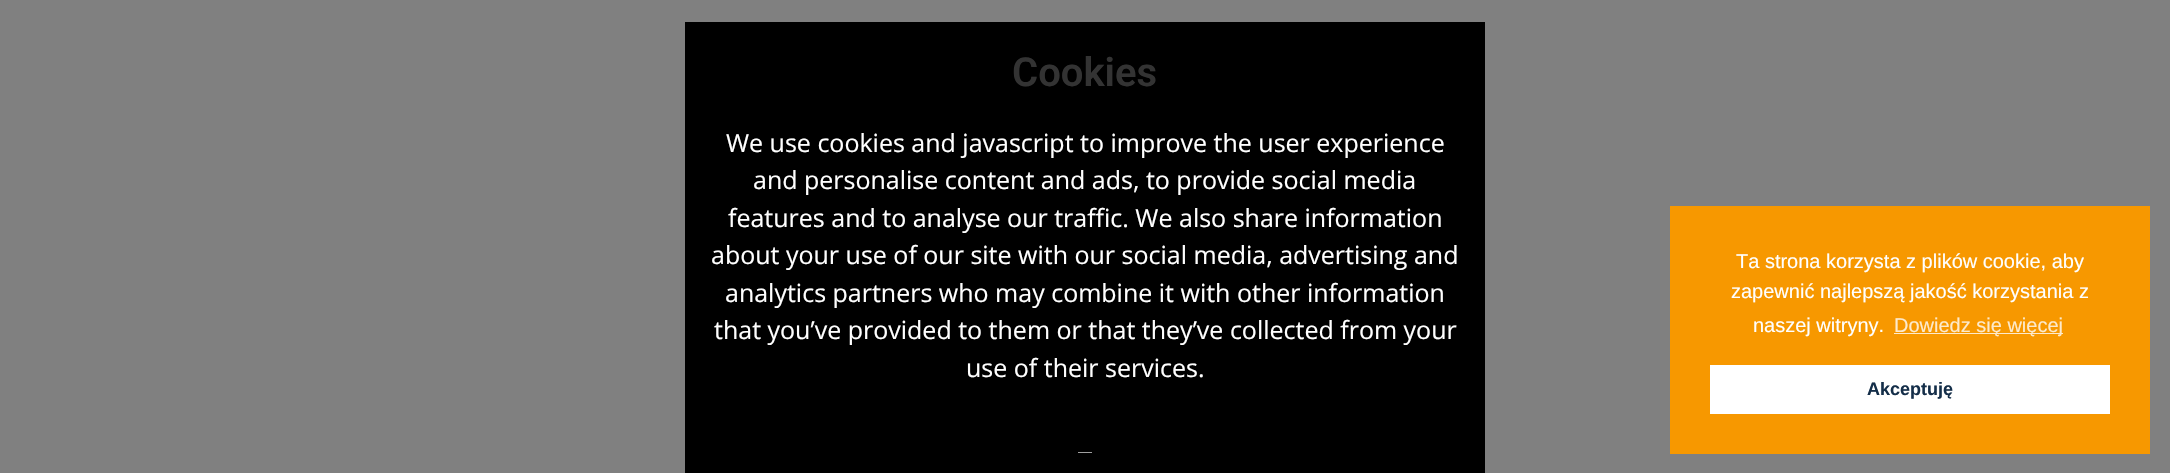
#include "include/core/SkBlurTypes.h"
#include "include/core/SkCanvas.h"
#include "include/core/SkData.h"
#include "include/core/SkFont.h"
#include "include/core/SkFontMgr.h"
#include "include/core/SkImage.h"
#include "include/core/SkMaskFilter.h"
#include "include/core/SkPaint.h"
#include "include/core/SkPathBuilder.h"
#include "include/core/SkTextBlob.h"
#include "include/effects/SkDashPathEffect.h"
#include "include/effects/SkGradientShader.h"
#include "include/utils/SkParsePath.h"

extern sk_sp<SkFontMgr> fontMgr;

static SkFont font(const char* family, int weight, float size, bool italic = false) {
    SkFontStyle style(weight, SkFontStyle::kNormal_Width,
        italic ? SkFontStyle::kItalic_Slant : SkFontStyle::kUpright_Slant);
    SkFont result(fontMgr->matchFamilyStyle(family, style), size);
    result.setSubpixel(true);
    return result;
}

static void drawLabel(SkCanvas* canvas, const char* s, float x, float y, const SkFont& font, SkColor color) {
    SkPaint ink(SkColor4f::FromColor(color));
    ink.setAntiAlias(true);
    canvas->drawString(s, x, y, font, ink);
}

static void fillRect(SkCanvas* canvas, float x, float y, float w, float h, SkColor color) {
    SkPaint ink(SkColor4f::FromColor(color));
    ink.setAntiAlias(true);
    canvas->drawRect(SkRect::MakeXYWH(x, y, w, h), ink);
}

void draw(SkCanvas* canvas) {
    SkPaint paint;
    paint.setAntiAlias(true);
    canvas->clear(0xFF808080);
    fillRect(canvas, 685, 22, 800, 451, 0xFF000000);
    SkFont font1 = font("Roboto", 600, 40);
    drawLabel(canvas, "Cookies", 1012, 86, font1, 0xFF333333);
    SkFont font2 = font("Open Sans", 400, 25);
    drawLabel(canvas, "We use cookies and javascript to improve the user experience", 726, 152, font2, 0xFFFFFFFF);
    drawLabel(canvas, "and personalise content and ads, to provide social media", 753, 189, font2, 0xFFFFFFFF);
    drawLabel(canvas, "features and to analyse our traffic. We also share information", 728, 227, font2, 0xFFFFFFFF);
    drawLabel(canvas, "about your use of our site with our social media, advertising and", 711, 264, font2, 0xFFFFFFFF);
    drawLabel(canvas, "analytics partners who may combine it with other information", 725, 302, font2, 0xFFFFFFFF);
    drawLabel(canvas, "that you’ve provided to them or that they’ve collected from your", 714, 339, font2, 0xFFFFFFFF);
    drawLabel(canvas, "use of their services.", 966, 377, font2, 0xFFFFFFFF);
    paint.setColor(0xFF9E9E9E);
    canvas->drawRect(SkRect::MakeXYWH(1076.5f, 450.5f, 17, 4), paint);
    paint.setStroke(true);
    paint.setStrokeWidth(3);
    paint.setColor(0xFF000000);
    canvas->drawRect(SkRect::MakeXYWH(1076.5f, 450.5f, 17, 4), paint);
    fillRect(canvas, 1670, 206, 480, 248, 0xFFF79800);
    SkFont font3 = font("Liberation Sans", 400, 20);
    drawLabel(canvas, "Ta strona korzysta z plików cookie, aby", 1736, 268, font3, 0xFFFFFFFF);
    drawLabel(canvas, "zapewnić najlepszą jakość korzystania z", 1731, 298, font3, 0xFFFFFFFF);
    drawLabel(canvas, "naszej witryny.", 1753, 332, font3, 0xFFFFFFFF);
    fillRect(canvas, 1894, 333, 169, 1, 0xFFFDEACC);
    drawLabel(canvas, "Dowiedz się więcej", 1894, 332, font3, 0xFFFDEACC);
    fillRect(canvas, 1710, 365, 400, 49, 0xFFFFFFFF);
    SkFont font4 = font("Liberation Sans", 700, 18);
    drawLabel(canvas, "Akceptuję", 1867, 395, font4, 0xFF142E49);
}
